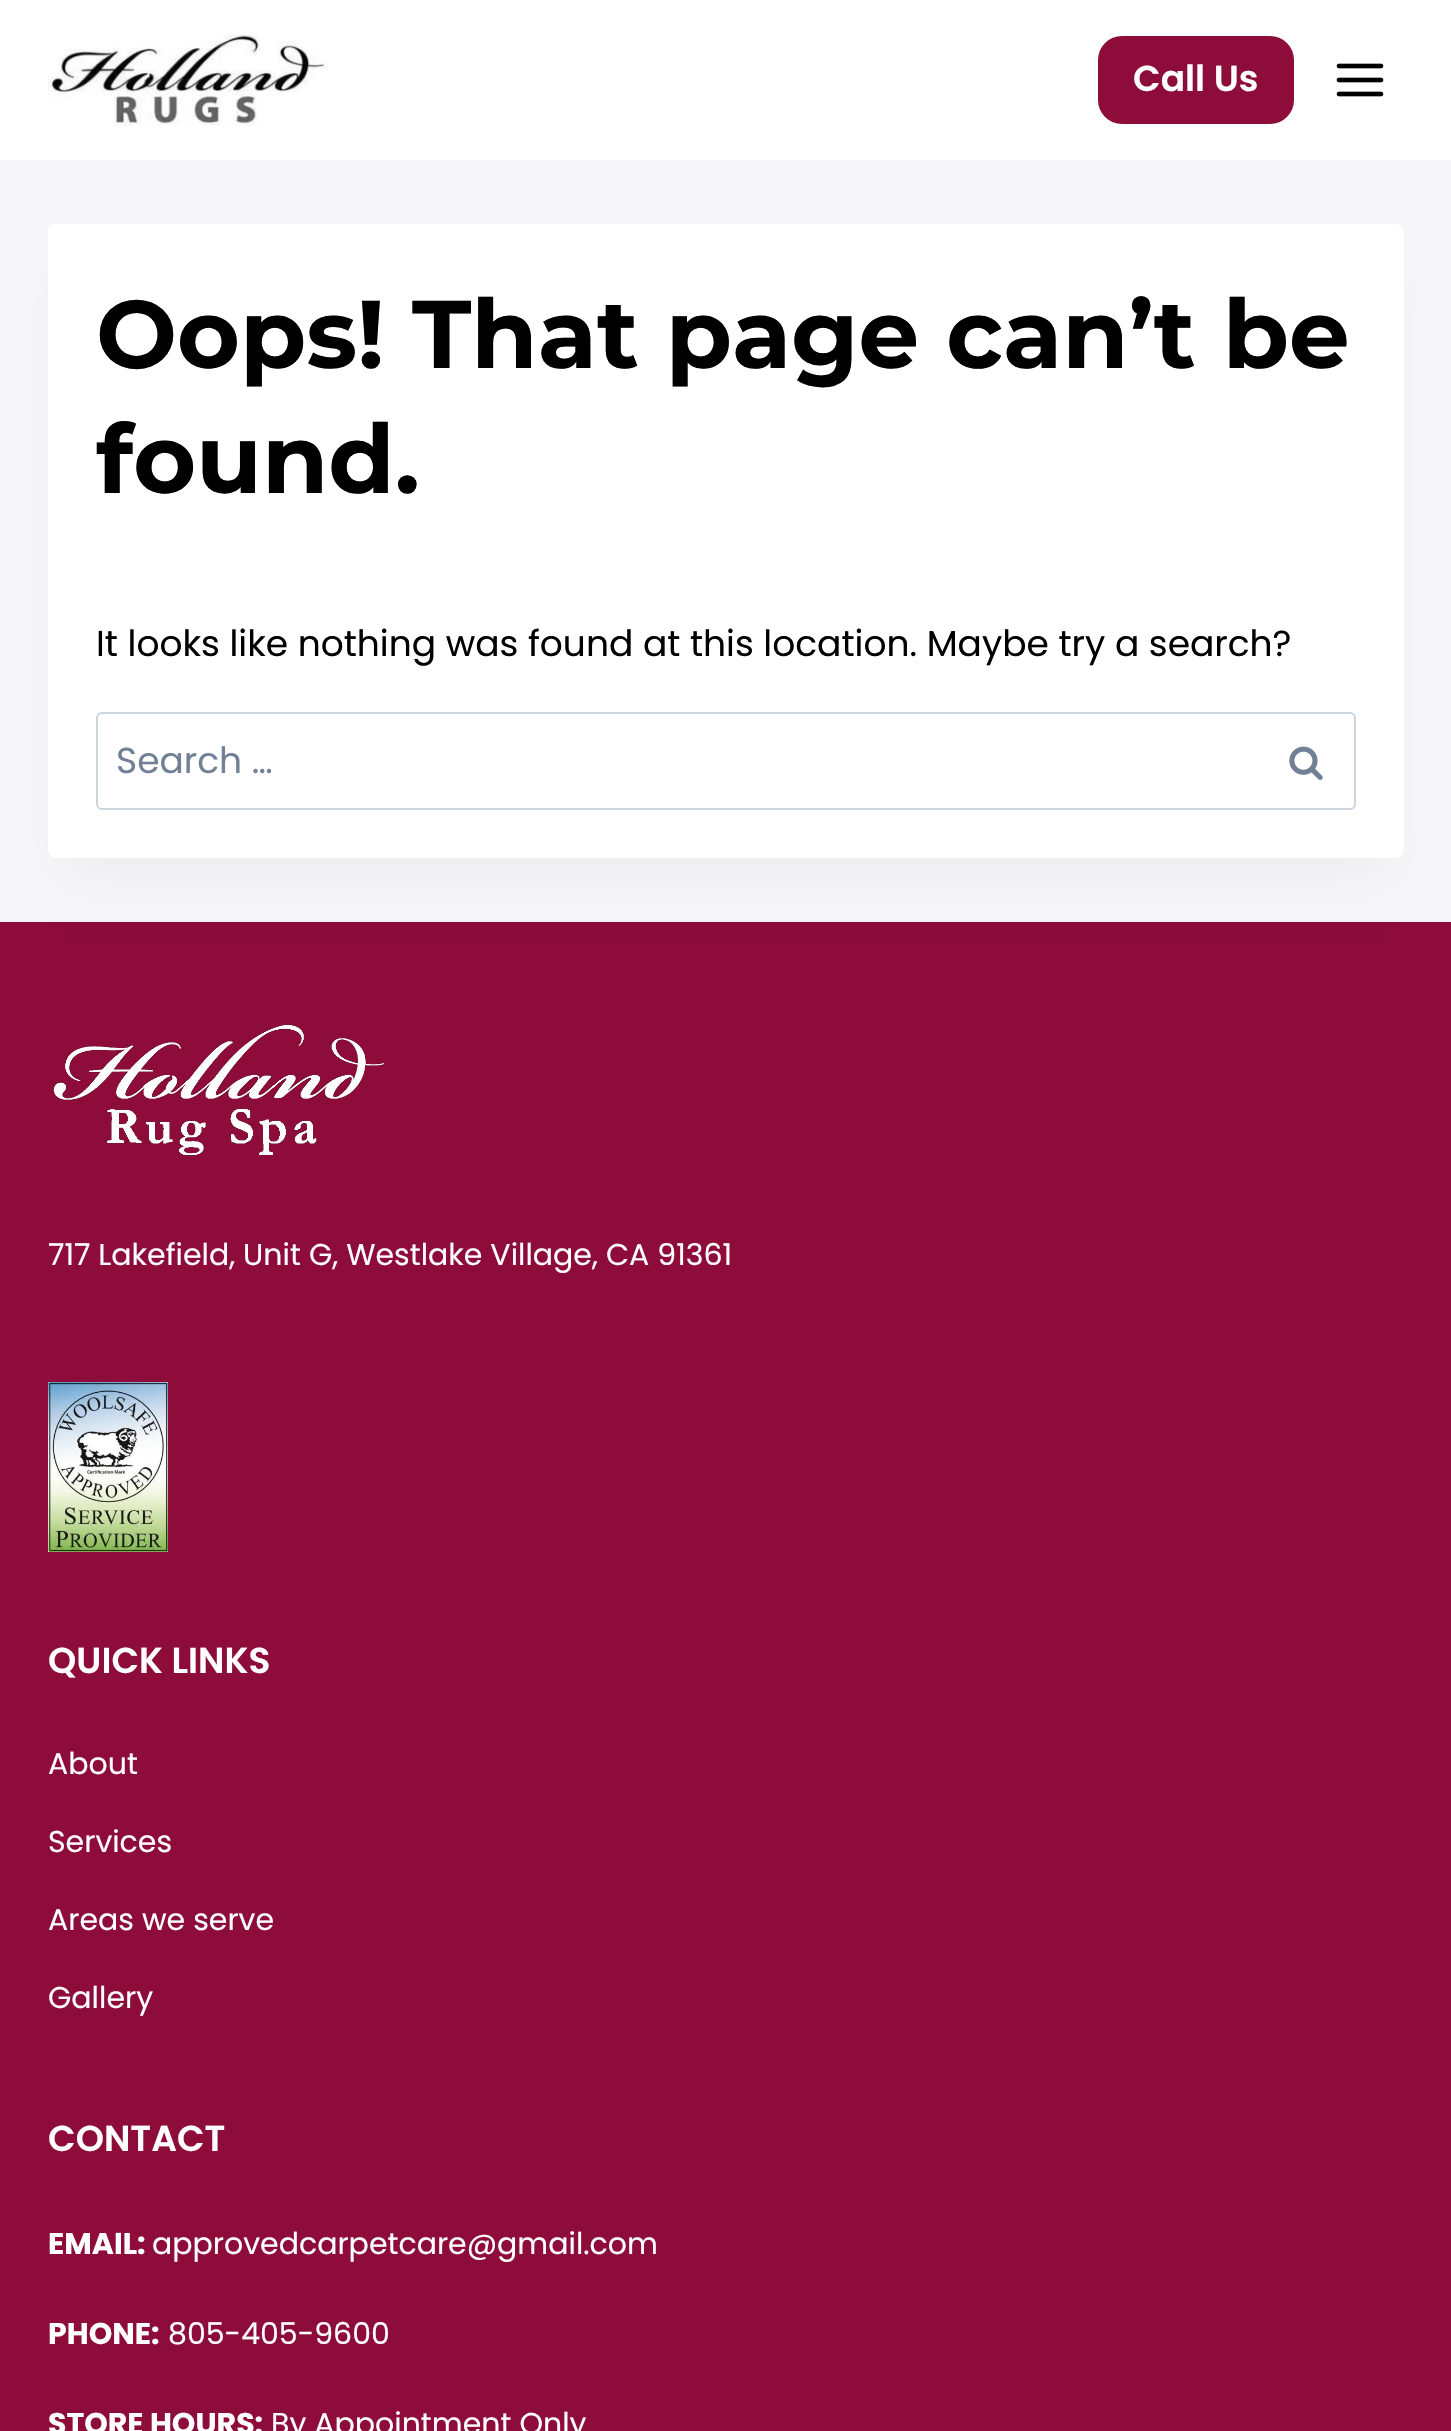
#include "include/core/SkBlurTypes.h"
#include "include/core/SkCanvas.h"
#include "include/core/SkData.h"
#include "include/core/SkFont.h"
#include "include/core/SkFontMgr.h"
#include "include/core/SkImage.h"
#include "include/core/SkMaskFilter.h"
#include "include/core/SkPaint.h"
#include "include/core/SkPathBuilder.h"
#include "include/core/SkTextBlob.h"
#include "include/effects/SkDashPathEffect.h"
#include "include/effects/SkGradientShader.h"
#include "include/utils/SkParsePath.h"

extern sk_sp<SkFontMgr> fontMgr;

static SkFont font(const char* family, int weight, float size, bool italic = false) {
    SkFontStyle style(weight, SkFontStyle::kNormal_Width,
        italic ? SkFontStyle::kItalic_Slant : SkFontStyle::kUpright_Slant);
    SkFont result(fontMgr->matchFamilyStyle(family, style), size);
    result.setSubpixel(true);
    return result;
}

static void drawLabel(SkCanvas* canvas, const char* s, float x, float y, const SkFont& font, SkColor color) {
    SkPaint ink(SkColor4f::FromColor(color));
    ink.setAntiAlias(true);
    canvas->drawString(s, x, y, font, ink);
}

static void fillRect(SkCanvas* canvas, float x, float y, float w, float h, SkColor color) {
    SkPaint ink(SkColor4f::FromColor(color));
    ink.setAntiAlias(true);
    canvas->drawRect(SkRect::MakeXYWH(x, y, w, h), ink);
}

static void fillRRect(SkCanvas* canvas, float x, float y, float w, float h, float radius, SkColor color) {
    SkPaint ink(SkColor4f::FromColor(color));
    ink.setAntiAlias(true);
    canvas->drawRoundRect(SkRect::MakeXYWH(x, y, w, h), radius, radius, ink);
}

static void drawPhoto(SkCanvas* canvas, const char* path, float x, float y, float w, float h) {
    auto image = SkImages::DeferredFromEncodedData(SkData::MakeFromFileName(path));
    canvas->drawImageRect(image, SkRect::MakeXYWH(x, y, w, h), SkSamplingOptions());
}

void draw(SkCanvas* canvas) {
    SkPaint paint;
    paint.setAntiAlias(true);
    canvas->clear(0xFFF7F7FA);
    fillRect(canvas, 0, 0, 1451, 160, 0xFFFFFFFF);
    drawPhoto(canvas, "assets/img1.png", 48, 34, 280, 92);
    fillRRect(canvas, 1098, 36, 196, 88, 24, 0xFF8D0C39);
    SkFont font1 = font("Poppins", 600, 36);
    drawLabel(canvas, "Call Us", 1133, 91, font1, 0xFFFFFFFF);
    drawPhoto(canvas, "assets/img2.png", 1336, 63, 48, 34);
    fillRect(canvas, 0, 922, 1451, 1509, 0xFF8D0C39);
    paint.setColor(0x0D000000);
    paint.setMaskFilter(SkMaskFilter::MakeBlur(kNormal_SkBlurStyle, 25));
    canvas->drawRect(SkRect::MakeXYWH(68, 274, 1316, 594), paint);
    paint.setMaskFilter(nullptr);
    fillRRect(canvas, 48, 224, 1356, 634, 8, 0xFFFFFFFF);
    SkFont font2 = font("Montserrat", 100, 96);
    drawLabel(canvas, "Oops! That page can’t be", 96, 368, font2, 0xFF000000);
    drawLabel(canvas, "found.", 96, 493, font2, 0xFF000000);
    SkFont font3 = font("Poppins", 400, 36);
    drawLabel(canvas, "It looks like nothing was found at this location. Maybe try a search?", 96, 656, font3, 0xFF000000);
    paint.setStroke(true);
    paint.setStrokeWidth(2);
    paint.setColor(0xFFCBD5E0);
    canvas->drawRoundRect(SkRect::MakeXYWH(97, 713, 1258, 96), 5, 5, paint);
    drawLabel(canvas, "Search …", 116, 773, font3, 0xFF718096);
    drawPhoto(canvas, "assets/img3.png", 1289, 746, 34, 34);
    drawPhoto(canvas, "assets/img4.png", 53, 1024, 332, 132);
    SkFont font4 = font("Poppins", 400, 30);
    drawLabel(canvas, "717 Lakefield, Unit G, Westlake Village, CA 91361", 48, 1265, font4, 0xFFFFFFFF);
    drawPhoto(canvas, "assets/img5.png", 48, 1382, 120, 170);
    drawLabel(canvas, "QUICK LINKS", 48, 1673, font1, 0xFFFFFFFF);
    drawLabel(canvas, "About", 48, 1774, font4, 0xFFFFFFFF);
    drawLabel(canvas, "Services", 48, 1852, font4, 0xFFFFFFFF);
    drawLabel(canvas, "Areas we serve", 48, 1930, font4, 0xFFFFFFFF);
    drawLabel(canvas, "Gallery", 48, 2008, font4, 0xFFFFFFFF);
    drawLabel(canvas, "CONTACT", 48, 2151, font1, 0xFFFFFFFF);
    SkFont font5 = font("Poppins", 700, 30);
    drawLabel(canvas, "EMAIL:", 48, 2254, font5, 0xFFFFFFFF);
    drawLabel(canvas, "approvedcarpetcare@gmail.com", 152, 2254, font4, 0xFFFFFFFF);
    drawLabel(canvas, "PHONE:", 48, 2344, font5, 0xFFFFFFFF);
    drawLabel(canvas, "805-405-9600", 168, 2344, font4, 0xFFFFFFFF);
    drawLabel(canvas, "STORE HOURS:", 48, 2434, font5, 0xFFFFFFFF);
    drawLabel(canvas, "By Appointment Only", 271, 2434, font4, 0xFFFFFFFF);
}
